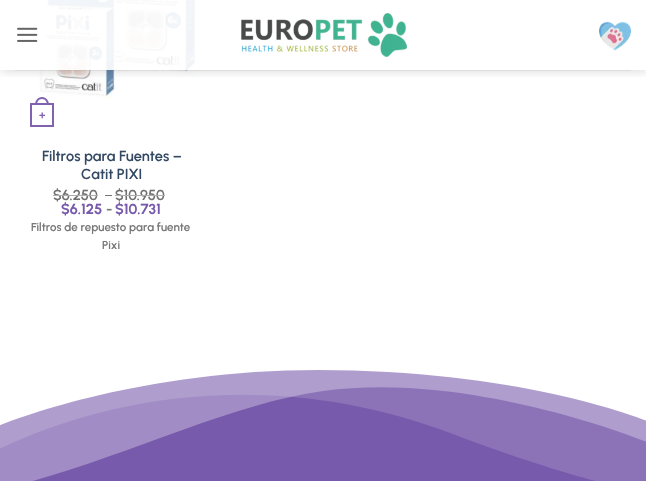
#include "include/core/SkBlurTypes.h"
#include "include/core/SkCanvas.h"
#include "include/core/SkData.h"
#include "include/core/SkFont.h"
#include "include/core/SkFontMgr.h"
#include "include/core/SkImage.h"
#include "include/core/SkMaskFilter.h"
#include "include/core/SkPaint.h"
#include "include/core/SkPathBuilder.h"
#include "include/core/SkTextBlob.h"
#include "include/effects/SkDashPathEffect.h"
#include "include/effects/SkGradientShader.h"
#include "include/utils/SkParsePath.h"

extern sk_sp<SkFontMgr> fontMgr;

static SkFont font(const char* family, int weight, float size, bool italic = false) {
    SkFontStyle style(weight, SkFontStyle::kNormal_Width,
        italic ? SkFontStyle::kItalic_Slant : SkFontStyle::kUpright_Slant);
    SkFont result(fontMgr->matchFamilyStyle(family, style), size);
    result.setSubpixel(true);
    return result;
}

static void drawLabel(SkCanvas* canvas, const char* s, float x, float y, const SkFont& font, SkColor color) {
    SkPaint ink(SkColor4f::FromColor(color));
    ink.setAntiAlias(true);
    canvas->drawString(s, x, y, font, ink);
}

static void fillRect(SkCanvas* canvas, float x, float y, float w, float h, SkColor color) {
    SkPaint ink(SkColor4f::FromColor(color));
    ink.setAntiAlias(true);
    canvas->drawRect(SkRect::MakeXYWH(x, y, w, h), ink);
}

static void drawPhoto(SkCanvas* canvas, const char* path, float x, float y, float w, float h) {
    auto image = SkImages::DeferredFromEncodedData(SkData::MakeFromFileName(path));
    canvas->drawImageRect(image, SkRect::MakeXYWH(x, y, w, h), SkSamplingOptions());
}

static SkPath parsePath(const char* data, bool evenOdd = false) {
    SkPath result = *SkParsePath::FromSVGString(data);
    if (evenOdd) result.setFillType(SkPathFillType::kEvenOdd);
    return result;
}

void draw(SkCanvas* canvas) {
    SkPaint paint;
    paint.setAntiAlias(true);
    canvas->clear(0xFFFFFFFF);
    drawPhoto(canvas, "assets/img4.png", 39, 0, 160, 100);
    canvas->save();
    canvas->clipRect(SkRect::MakeXYWH(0, 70, 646, 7));
    paint.setColor(0x26000000);
    paint.setMaskFilter(SkMaskFilter::MakeBlur(kNormal_SkBlurStyle, 5));
    canvas->drawRect(SkRect::MakeXYWH(1, 1, 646, 70), paint);
    paint.setMaskFilter(nullptr);
    canvas->restore();
    fillRect(canvas, 39, 0, 160, 70, 0xE6FFFFFF);
    drawPhoto(canvas, "assets/img1.png", 17, 27, 21, 15);
    drawPhoto(canvas, "assets/img2.png", 241, 13, 166, 44);
    drawPhoto(canvas, "assets/img3.png", 599, 21, 32, 30);
    fillRect(canvas, 15, 70, 616, 1, 0x1A777777);
    paint.setStroke(true);
    paint.setStrokeWidth(2);
    paint.setColor(0xFF7F62B0);
    canvas->drawRect(SkRect::MakeXYWH(31, 104, 22, 22), paint);
    paint.setStroke(false);
    canvas->drawPath(parsePath("M42 97C46.5 97 49 101 49 105H35C35 101 37.5 97 42 97ZM42 99C45.5 99 47 102 47 105H37C37 102 38.5 99 42 99Z", true), paint);
    SkFont font1 = font("Liberation Sans", 700, 11);
    drawLabel(canvas, "+", 39, 119, font1, 0xFF7F62B0);
    SkFont font2 = font("Urbanist", 600, 14.5f);
    drawLabel(canvas, "Filtros para Fuentes –", 42, 161, font2, 0xFF334862);
    drawLabel(canvas, "Catit PIXI", 81, 179, font2, 0xFF334862);
    drawLabel(canvas, "$6.250", 53, 200, font2, 0xFF707070);
    fillRect(canvas, 53, 195, 45, 1, 0xFFADADAD);
    drawLabel(canvas, "$10.950", 115, 200, font2, 0xFF707070);
    fillRect(canvas, 105, 195, 7, 1, 0xFF777777);
    fillRect(canvas, 115, 195, 50, 1, 0xFFADADAD);
    SkFont font3 = font("Urbanist", 700, 14.5f);
    drawLabel(canvas, "$6.125", 61, 214, font3, 0xFF785AAC);
    drawLabel(canvas, "-", 106, 214, font2, 0xFF777777);
    drawLabel(canvas, "$10.731", 115, 214, font3, 0xFF785AAC);
    SkFont font4 = font("Urbanist", 600, 11.5f);
    drawLabel(canvas, "Filtros de repuesto para fuente", 31, 231, font4, 0xFF777777);
    drawLabel(canvas, "Pixi", 102, 249, font4, 0xFF777777);
    fillRect(canvas, 0, 370, 646, 111, 0xFF785AAC);
    canvas->save();
    canvas->clipRect(SkRect::MakeXYWH(0, 355, 646, 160));
    paint.setColor(0x26FFFFFF);
    canvas->drawPath(parsePath("M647 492C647 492 590 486 453 434C284 370 120 391-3 450L-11 405L-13 348H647Z"), paint);
    paint.setColor(0x4DFFFFFF);
    canvas->drawPath(parsePath("M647 442C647 442 471 370 323 391C221 405 109 466-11 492V354H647Z"), paint);
    paint.setColor(0xFFFFFFFF);
    canvas->drawPath(parsePath("M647 421C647 421 525 370 318 370C130 370-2 426-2 426V354H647Z"), paint);
    canvas->restore();
}
